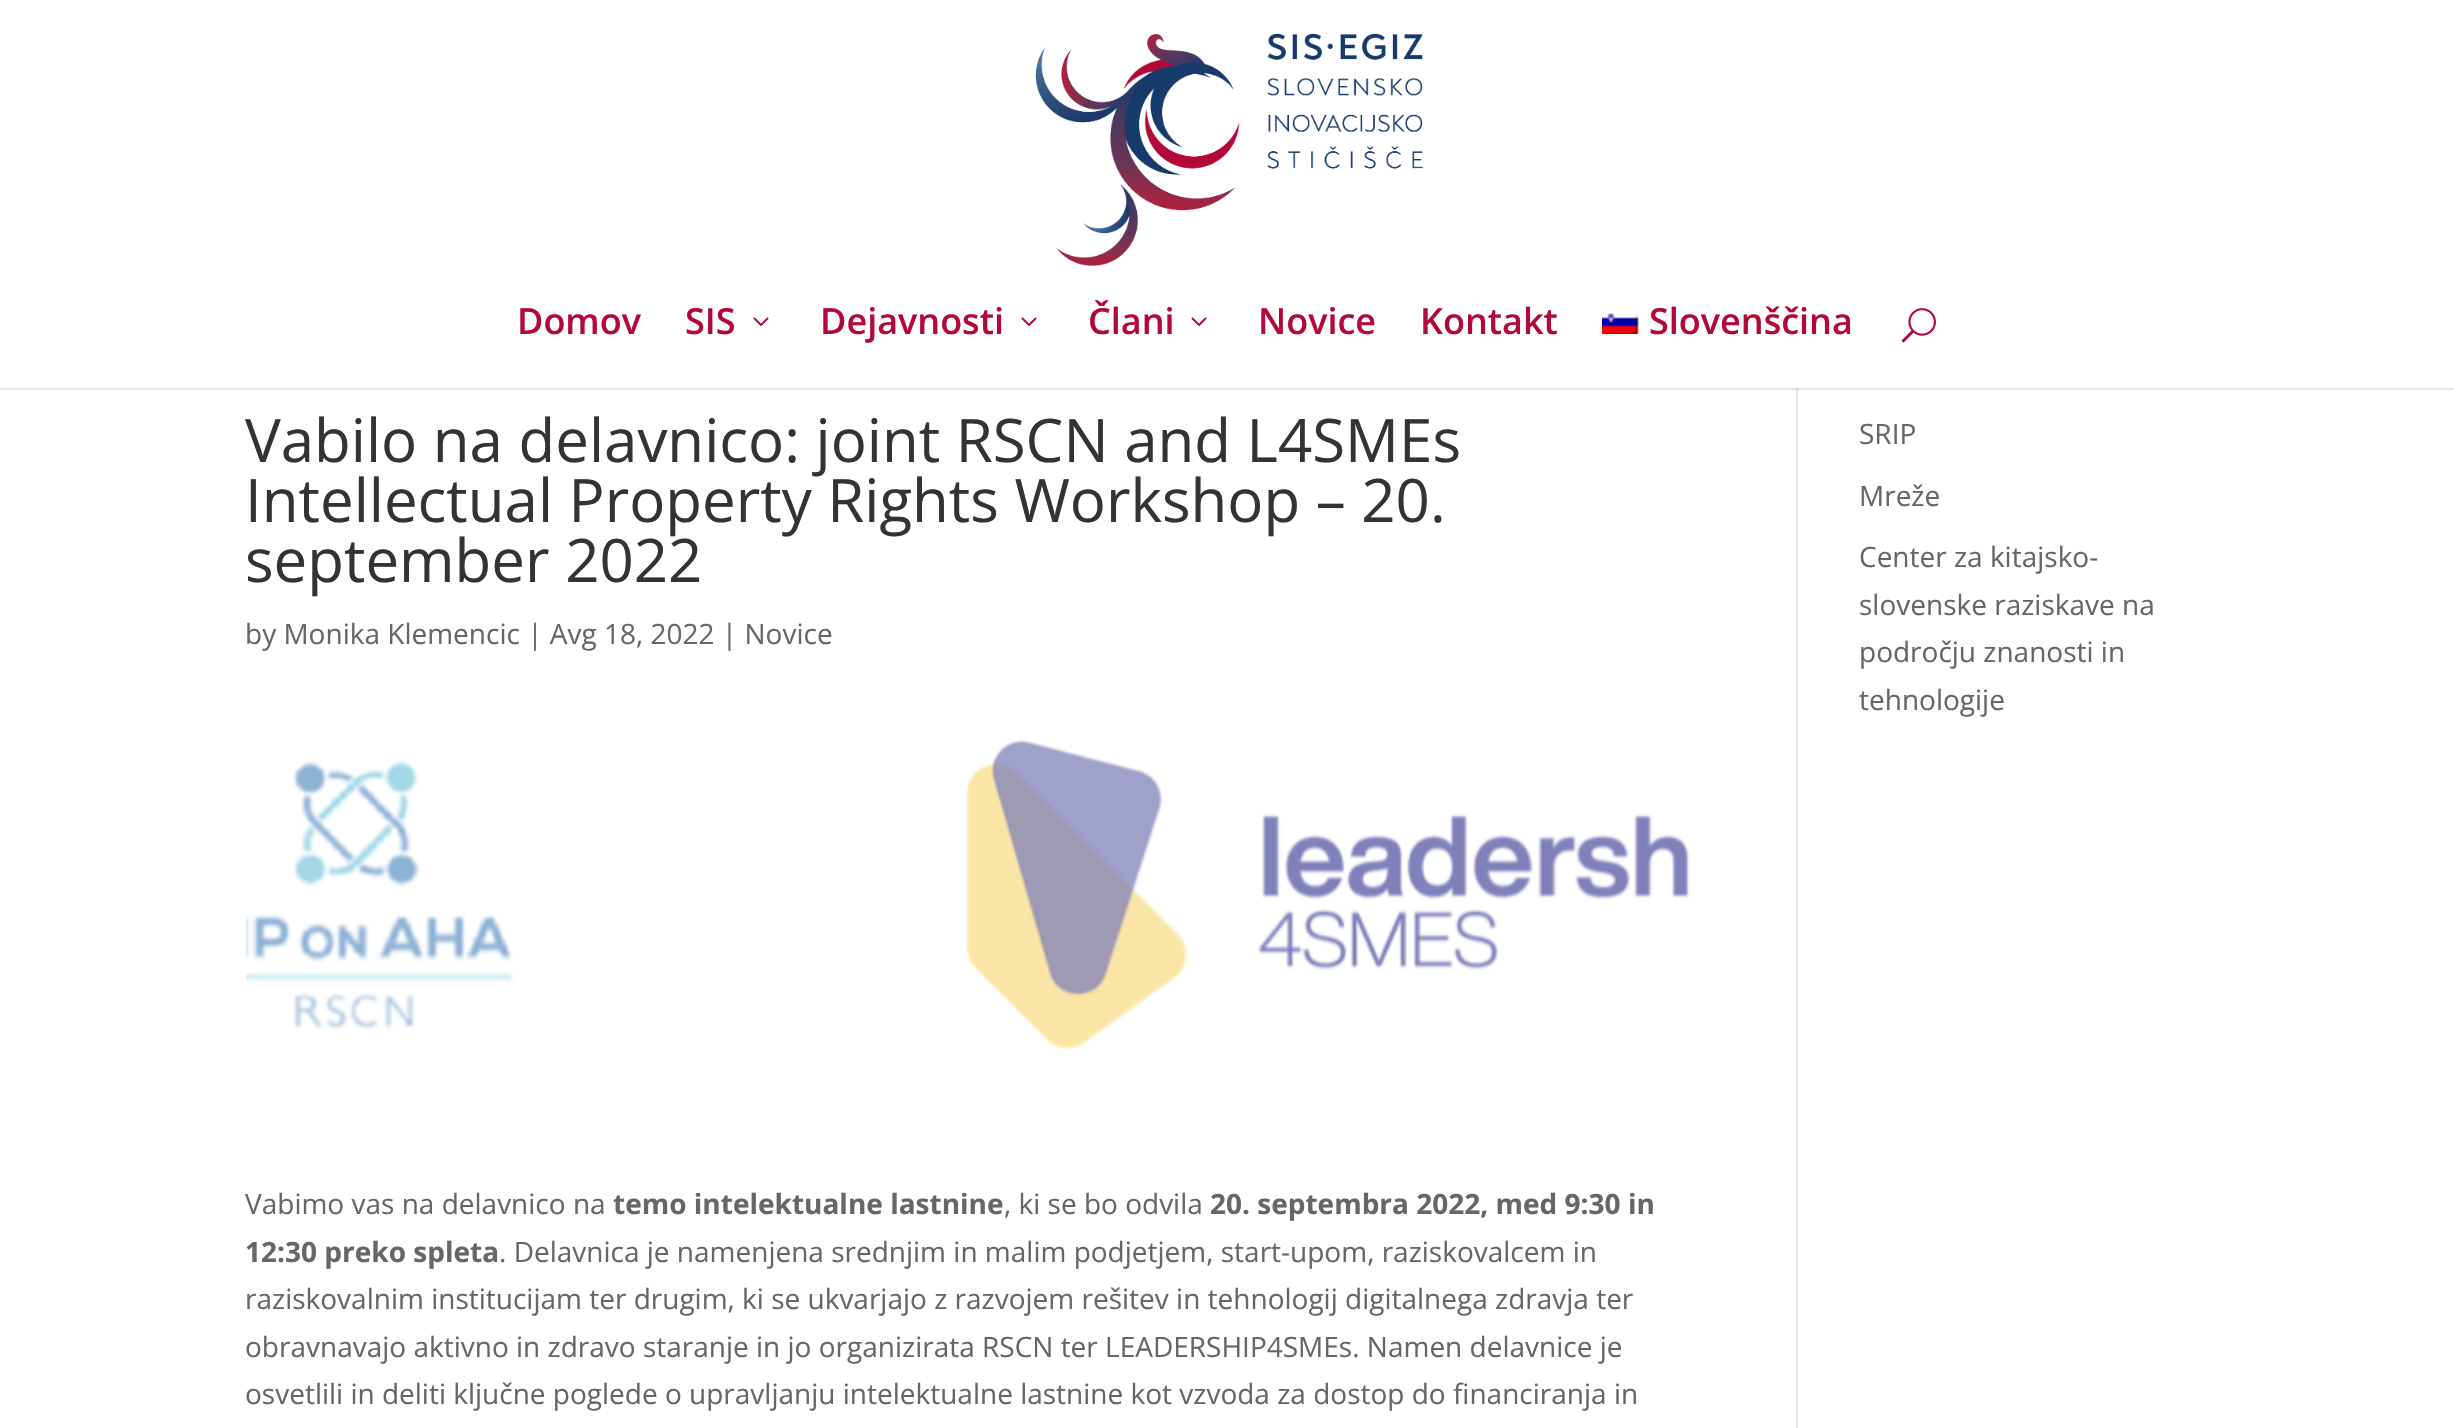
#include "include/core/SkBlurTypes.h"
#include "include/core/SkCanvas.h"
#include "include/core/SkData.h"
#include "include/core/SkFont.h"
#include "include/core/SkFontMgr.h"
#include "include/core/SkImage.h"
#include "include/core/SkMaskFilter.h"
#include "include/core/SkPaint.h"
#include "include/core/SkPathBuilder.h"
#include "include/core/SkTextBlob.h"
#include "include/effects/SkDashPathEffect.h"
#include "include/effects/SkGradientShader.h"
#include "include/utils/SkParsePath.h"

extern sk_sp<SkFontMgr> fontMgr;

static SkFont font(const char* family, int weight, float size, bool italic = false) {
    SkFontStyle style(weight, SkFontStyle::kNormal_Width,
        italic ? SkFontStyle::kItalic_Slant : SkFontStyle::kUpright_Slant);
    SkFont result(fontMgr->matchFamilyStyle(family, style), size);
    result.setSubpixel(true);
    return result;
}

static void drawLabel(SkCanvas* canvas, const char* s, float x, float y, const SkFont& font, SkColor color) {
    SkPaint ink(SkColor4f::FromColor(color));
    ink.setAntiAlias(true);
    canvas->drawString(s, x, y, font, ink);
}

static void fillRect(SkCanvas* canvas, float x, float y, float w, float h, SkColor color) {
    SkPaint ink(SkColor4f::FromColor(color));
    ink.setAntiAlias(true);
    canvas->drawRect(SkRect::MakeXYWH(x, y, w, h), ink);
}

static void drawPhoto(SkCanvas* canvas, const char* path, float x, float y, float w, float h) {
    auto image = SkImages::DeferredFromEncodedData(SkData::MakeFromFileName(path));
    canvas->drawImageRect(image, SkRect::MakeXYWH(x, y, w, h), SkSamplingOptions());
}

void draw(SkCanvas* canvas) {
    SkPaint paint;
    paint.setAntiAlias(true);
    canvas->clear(0xFFFFFFFF);
    fillRect(canvas, 0, 388, 2454, 2, 0xFFE6E6E6);
    drawPhoto(canvas, "assets/img1.png", 1035, 33, 388, 233);
    SkFont font1 = font("Open Sans", 600, 36);
    drawLabel(canvas, "Domov", 517, 334, font1, 0xFFB30838);
    drawLabel(canvas, "SIS", 685, 334, font1, 0xFFB30838);
    drawPhoto(canvas, "assets/img2.png", 753, 317, 16, 9);
    drawLabel(canvas, "Dejavnosti", 820, 334, font1, 0xFFB30838);
    drawPhoto(canvas, "assets/img2.png", 1021, 317, 16, 9);
    drawLabel(canvas, "Člani", 1088, 334, font1, 0xFFB30838);
    drawPhoto(canvas, "assets/img2.png", 1191, 317, 16, 9);
    drawLabel(canvas, "Novice", 1258, 334, font1, 0xFFB30838);
    drawLabel(canvas, "Kontakt", 1420, 334, font1, 0xFFB30838);
    drawPhoto(canvas, "assets/img3.png", 1602, 313, 37, 21);
    drawLabel(canvas, "Slovenščina", 1649, 334, font1, 0xFFB30838);
    drawPhoto(canvas, "assets/img4.png", 1901, 308, 35, 35);
    fillRect(canvas, 1796, 390, 2, 1038, 0xFFE2E2E2);
    fillRect(canvas, 1796, 388, 2, 2, 0xFFCBCBCB);
    SkFont font2 = font("Open Sans", 400, 60);
    drawLabel(canvas, "Vabilo na delavnico: joint RSCN and L4SMEs", 245, 462, font2, 0xFF333333);
    drawLabel(canvas, "Intellectual Property Rights Workshop – 20.", 245, 522, font2, 0xFF333333);
    drawLabel(canvas, "september 2022", 245, 582, font2, 0xFF333333);
    SkFont font3 = font("Open Sans", 400, 28);
    drawLabel(canvas, "by Monika Klemencic | Avg 18, 2022 | Novice", 245, 644, font3, 0xFF666666);
    drawPhoto(canvas, "assets/img5.png", 246, 739, 1444, 311);
    drawLabel(canvas, "Vabimo vas na delavnico na", 245, 1214, font3, 0xFF666666);
    SkFont font4 = font("Open Sans", 700, 28);
    drawLabel(canvas, "temo intelektualne lastnine", 613, 1214, font4, 0xFF666666);
    drawLabel(canvas, ", ki se bo odvila", 1004, 1214, font3, 0xFF666666);
    drawLabel(canvas, "20. septembra 2022, med 9:30 in", 1210, 1214, font4, 0xFF666666);
    drawLabel(canvas, "12:30 preko spleta", 245, 1262, font4, 0xFF666666);
    drawLabel(canvas, ". Delavnica je namenjena srednjim in malim podjetjem, start-upom, raziskovalcem in", 499, 1262, font3, 0xFF666666);
    drawLabel(canvas, "raziskovalnim institucijam ter drugim, ki se ukvarjajo z razvojem rešitev in tehnologij digitalnega zdravja ter", 245, 1309, font3, 0xFF666666);
    drawLabel(canvas, "obravnavajo aktivno in zdravo staranje in jo organizirata RSCN ter LEADERSHIP4SMEs. Namen delavnice je", 245, 1357, font3, 0xFF666666);
    drawLabel(canvas, "osvetlili in deliti ključne poglede o upravljanju intelektualne lastnine kot vzvoda za dostop do financiranja in", 245, 1404, font3, 0xFF666666);
    drawLabel(canvas, "SRIP", 1859, 444, font3, 0xFF666666);
    drawLabel(canvas, "Mreže", 1859, 506, font3, 0xFF666666);
    drawLabel(canvas, "Center za kitajsko-", 1859, 567, font3, 0xFF666666);
    drawLabel(canvas, "slovenske raziskave na", 1859, 615, font3, 0xFF666666);
    drawLabel(canvas, "področju znanosti in", 1859, 662, font3, 0xFF666666);
    drawLabel(canvas, "tehnologije", 1859, 710, font3, 0xFF666666);
}
